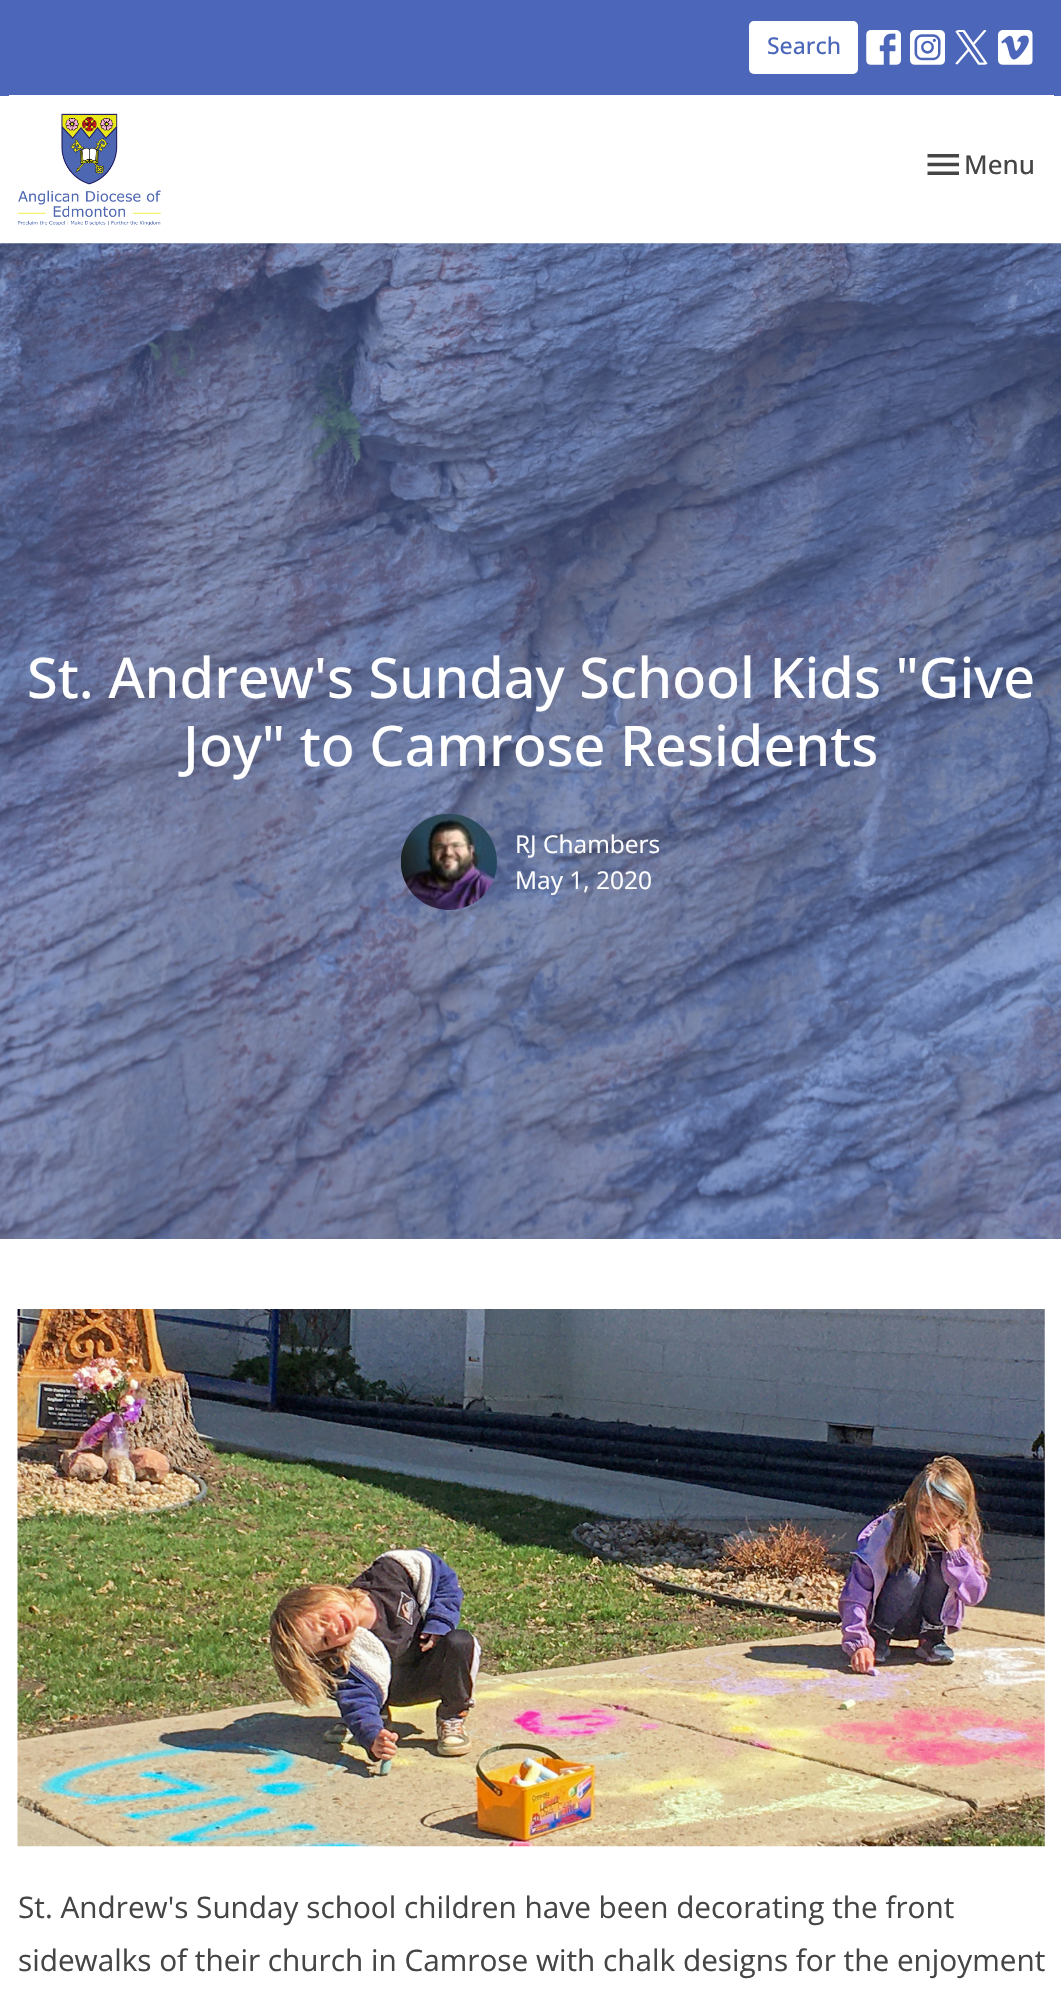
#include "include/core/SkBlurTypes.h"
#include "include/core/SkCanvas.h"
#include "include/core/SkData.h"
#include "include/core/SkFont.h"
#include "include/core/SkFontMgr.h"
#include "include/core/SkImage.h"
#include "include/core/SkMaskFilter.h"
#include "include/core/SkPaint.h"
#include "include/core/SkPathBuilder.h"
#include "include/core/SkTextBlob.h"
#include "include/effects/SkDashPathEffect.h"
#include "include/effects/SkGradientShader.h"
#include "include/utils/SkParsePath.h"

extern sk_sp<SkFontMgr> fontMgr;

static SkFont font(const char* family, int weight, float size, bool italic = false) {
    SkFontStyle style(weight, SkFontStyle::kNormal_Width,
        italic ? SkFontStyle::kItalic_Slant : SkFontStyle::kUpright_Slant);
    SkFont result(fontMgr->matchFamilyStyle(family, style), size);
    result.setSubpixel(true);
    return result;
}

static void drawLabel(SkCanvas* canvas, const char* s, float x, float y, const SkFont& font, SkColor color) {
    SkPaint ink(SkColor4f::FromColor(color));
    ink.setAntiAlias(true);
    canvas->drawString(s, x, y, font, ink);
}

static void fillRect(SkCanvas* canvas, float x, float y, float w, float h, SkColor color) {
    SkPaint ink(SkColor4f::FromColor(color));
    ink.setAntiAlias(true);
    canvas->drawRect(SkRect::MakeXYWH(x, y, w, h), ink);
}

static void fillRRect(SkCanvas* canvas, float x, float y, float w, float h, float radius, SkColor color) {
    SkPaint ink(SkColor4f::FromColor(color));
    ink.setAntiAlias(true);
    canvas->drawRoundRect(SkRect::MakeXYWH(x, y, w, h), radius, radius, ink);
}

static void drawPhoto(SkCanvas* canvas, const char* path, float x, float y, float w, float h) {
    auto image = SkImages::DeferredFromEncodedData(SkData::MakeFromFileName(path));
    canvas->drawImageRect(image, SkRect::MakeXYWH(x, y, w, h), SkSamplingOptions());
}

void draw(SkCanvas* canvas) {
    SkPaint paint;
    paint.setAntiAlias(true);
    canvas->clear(0xFFFFFFFF);
    fillRect(canvas, 0, 0, 1061, 96, 0xFF4C67BA);
    fillRect(canvas, 9, 95, 1045, 1, 0xFFFFFFFF);
    fillRRect(canvas, 749, 21, 109, 53, 5, 0xFFFFFFFF);
    SkFont font1 = font("Open Sans", 500, 23);
    drawLabel(canvas, "Search", 767, 54, font1, 0xFF4C67BA);
    drawPhoto(canvas, "assets/img1.png", 866, 30, 35, 35);
    drawPhoto(canvas, "assets/img2.png", 910, 30, 35, 35);
    drawPhoto(canvas, "assets/img3.png", 955, 30, 33, 35);
    drawPhoto(canvas, "assets/img4.png", 998, 30, 35, 35);
    drawPhoto(canvas, "assets/img5.png", 17, 113, 144, 113);
    drawPhoto(canvas, "assets/img6.png", 927, 154, 32, 21);
    SkFont font2 = font("Open Sans", 500, 26);
    drawLabel(canvas, "Menu", 964, 174, font2, 0xFF454545);
    drawPhoto(canvas, "assets/img7.png", 0, 243, 1061, 996);
    SkFont font3 = font("Open Sans", 500, 56);
    drawLabel(canvas, "St. Andrew's Sunday School Kids \"Give", 27, 698, font3, 0xFFFFFFFF);
    drawLabel(canvas, "Joy\" to Camrose Residents", 183, 766, font3, 0xFFFFFFFF);
    drawPhoto(canvas, "assets/img8.png", 400, 814, 97, 96);
    SkFont font4 = font("Open Sans", 400, 24.5f);
    drawLabel(canvas, "RJ Chambers", 515, 853, font4, 0xFFFFFFFF);
    drawLabel(canvas, "May 1, 2020", 515, 889, font4, 0xFFFFFFFF);
    drawPhoto(canvas, "assets/img9.png", 17, 1309, 1028, 538);
    SkFont font5 = font("Open Sans", 400, 29.75f);
    drawLabel(canvas, "St. Andrew's Sunday school children have been decorating the front", 18, 1918, font5, 0xFF454545);
    drawLabel(canvas, "sidewalks of their church in Camrose with chalk designs for the enjoyment", 18, 1971, font5, 0xFF454545);
}
